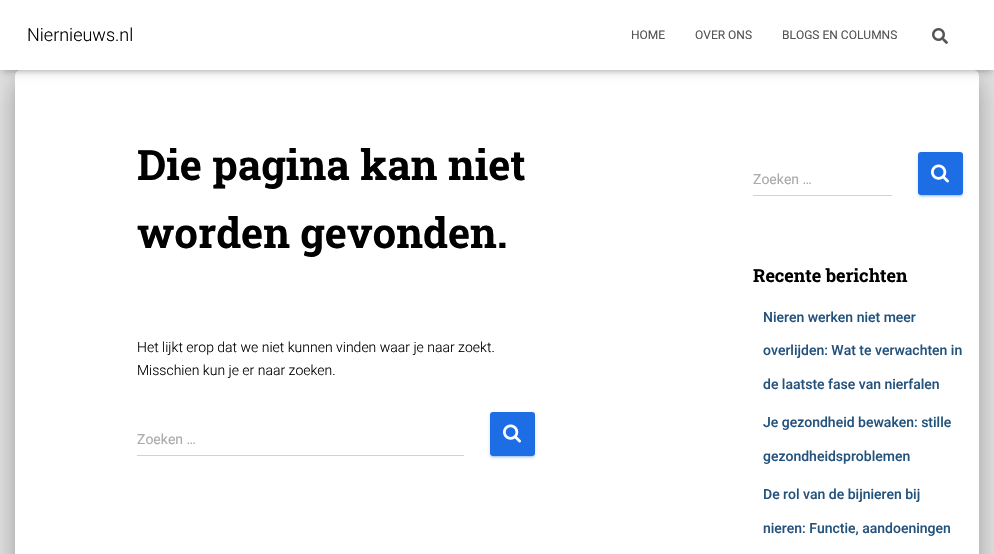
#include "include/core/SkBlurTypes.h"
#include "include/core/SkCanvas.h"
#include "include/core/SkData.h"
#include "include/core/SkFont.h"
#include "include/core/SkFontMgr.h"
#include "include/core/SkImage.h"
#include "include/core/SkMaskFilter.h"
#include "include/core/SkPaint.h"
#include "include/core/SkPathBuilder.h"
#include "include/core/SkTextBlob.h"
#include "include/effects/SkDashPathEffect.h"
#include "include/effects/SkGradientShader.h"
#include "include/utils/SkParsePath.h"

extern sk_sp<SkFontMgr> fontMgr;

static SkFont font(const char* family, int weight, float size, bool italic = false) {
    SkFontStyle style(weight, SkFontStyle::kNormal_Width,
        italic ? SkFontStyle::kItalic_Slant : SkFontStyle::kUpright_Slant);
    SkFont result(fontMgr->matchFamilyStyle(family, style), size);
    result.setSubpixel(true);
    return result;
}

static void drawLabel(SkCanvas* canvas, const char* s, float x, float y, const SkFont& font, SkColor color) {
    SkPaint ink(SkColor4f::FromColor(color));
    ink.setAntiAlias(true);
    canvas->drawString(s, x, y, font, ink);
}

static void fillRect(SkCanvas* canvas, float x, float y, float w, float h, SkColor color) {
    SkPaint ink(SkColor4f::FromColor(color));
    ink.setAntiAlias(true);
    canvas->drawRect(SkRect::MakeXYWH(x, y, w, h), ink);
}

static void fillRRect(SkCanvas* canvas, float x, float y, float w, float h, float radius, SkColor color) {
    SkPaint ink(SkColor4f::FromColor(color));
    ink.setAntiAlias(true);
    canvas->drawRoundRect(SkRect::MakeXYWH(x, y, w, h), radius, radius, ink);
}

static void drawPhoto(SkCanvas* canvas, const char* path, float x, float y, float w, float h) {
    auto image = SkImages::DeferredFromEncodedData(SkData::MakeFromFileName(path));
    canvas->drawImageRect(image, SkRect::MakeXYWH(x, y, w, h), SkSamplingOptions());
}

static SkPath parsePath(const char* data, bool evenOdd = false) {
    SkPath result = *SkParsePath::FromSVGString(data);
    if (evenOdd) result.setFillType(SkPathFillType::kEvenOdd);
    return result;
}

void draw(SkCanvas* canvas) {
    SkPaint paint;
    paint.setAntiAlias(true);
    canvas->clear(0xFFE5E5E5);
    paint.setColor(0x33000000);
    paint.setMaskFilter(SkMaskFilter::MakeBlur(kNormal_SkBlurStyle, 5));
    canvas->drawRoundRect(SkRect::MakeXYWH(20, 83, 954, 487), 1, 1, paint);
    paint.setMaskFilter(nullptr);
    paint.setColor(0x1F000000);
    paint.setMaskFilter(SkMaskFilter::MakeBlur(kNormal_SkBlurStyle, 15));
    canvas->drawRoundRect(SkRect::MakeXYWH(10, 71, 974, 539), 11, 11, paint);
    paint.setMaskFilter(nullptr);
    paint.setColor(0x24000000);
    paint.setMaskFilter(SkMaskFilter::MakeBlur(kNormal_SkBlurStyle, 12));
    canvas->drawRoundRect(SkRect::MakeXYWH(13, 84, 968, 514), 8, 8, paint);
    paint.setMaskFilter(nullptr);
    paint.setColor(0xFFFFFFFF);
    canvas->drawPath(parsePath("M21 70H973C976.5 70 979 72.5 979 76V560H15V76C15 72.5 17.5 70 21 70Z"), paint);
    paint.setColor(0x1A000000);
    paint.setMaskFilter(SkMaskFilter::MakeBlur(kNormal_SkBlurStyle, 2.5f));
    canvas->drawRect(SkRect::MakeXYWH(2, 6, 990, 66), paint);
    paint.setMaskFilter(nullptr);
    paint.setColor(0x1F000000);
    paint.setMaskFilter(SkMaskFilter::MakeBlur(kNormal_SkBlurStyle, 5));
    canvas->drawRect(SkRect::MakeXYWH(0, 1, 994, 70), paint);
    paint.setMaskFilter(nullptr);
    paint.setColor(0x6B000000);
    paint.setMaskFilter(SkMaskFilter::MakeBlur(kNormal_SkBlurStyle, 5));
    canvas->drawRect(SkRect::MakeXYWH(6, 7, 982, 58), paint);
    paint.setMaskFilter(nullptr);
    fillRect(canvas, 0, 0, 994, 70, 0xFFFFFFFF);
    SkFont font1 = font("Roboto", 300, 18);
    drawLabel(canvas, "Niernieuws.nl", 27, 41, font1, 0xFF000000);
    SkFont font2 = font("Roboto", 400, 12);
    drawLabel(canvas, "HOME", 631, 39, font2, 0xFF555555);
    drawLabel(canvas, "OVER ONS", 695, 39, font2, 0xFF555555);
    drawLabel(canvas, "BLOGS EN COLUMNS", 782, 39, font2, 0xFF555555);
    drawPhoto(canvas, "assets/img1.png", 932, 28, 16, 16);
    SkFont font3 = font("Roboto Slab", 700, 42);
    drawLabel(canvas, "Die pagina kan niet", 137, 180, font3, 0xFF000000);
    drawLabel(canvas, "worden gevonden.", 137, 248, font3, 0xFF000000);
    SkFont font4 = font("Roboto", 300, 14);
    drawLabel(canvas, "Het lijkt erop dat we niet kunnen vinden waar je naar zoekt.", 137, 352, font4, 0xFF000000);
    drawLabel(canvas, "Misschien kun je er naar zoeken.", 137, 375, font4, 0xFF000000);
    SkFont font5 = font("Roboto", 400, 14);
    drawLabel(canvas, "Zoeken …", 137, 444, font5, 0xFFAAAAAA);
    fillRect(canvas, 137, 455, 327, 1, 0xFFD2D2D2);
    paint.setColor(0x1F1D6DE5);
    paint.setMaskFilter(SkMaskFilter::MakeBlur(kNormal_SkBlurStyle, 2.5f));
    canvas->drawRoundRect(SkRect::MakeXYWH(490, 413, 45, 44), 3, 3, paint);
    paint.setMaskFilter(nullptr);
    paint.setColor(0x331D6DE5);
    paint.setMaskFilter(SkMaskFilter::MakeBlur(kNormal_SkBlurStyle, 0.5f));
    canvas->drawRoundRect(SkRect::MakeXYWH(492, 417, 41, 40), 1, 1, paint);
    paint.setMaskFilter(nullptr);
    paint.setColor(0x241D6DE5);
    paint.setMaskFilter(SkMaskFilter::MakeBlur(kNormal_SkBlurStyle, 1));
    canvas->drawRoundRect(SkRect::MakeXYWH(490, 414, 45, 44), 3, 3, paint);
    paint.setMaskFilter(nullptr);
    fillRRect(canvas, 490, 412, 45, 44, 3, 0xFF1D6DE5);
    drawPhoto(canvas, "assets/img2.png", 503, 424, 18, 19);
    drawLabel(canvas, "Zoeken …", 753, 184, font5, 0xFFAAAAAA);
    fillRect(canvas, 753, 195, 139, 1, 0xFFD2D2D2);
    paint.setColor(0x1F1D6DE5);
    paint.setMaskFilter(SkMaskFilter::MakeBlur(kNormal_SkBlurStyle, 2.5f));
    canvas->drawRoundRect(SkRect::MakeXYWH(918, 153, 45, 43), 3, 3, paint);
    paint.setMaskFilter(nullptr);
    paint.setColor(0x331D6DE5);
    paint.setMaskFilter(SkMaskFilter::MakeBlur(kNormal_SkBlurStyle, 0.5f));
    canvas->drawRoundRect(SkRect::MakeXYWH(920, 157, 41, 39), 1, 1, paint);
    paint.setMaskFilter(nullptr);
    paint.setColor(0x241D6DE5);
    paint.setMaskFilter(SkMaskFilter::MakeBlur(kNormal_SkBlurStyle, 1));
    canvas->drawRoundRect(SkRect::MakeXYWH(918, 154, 45, 43), 3, 3, paint);
    paint.setMaskFilter(nullptr);
    fillRRect(canvas, 918, 152, 45, 43, 3, 0xFF1D6DE5);
    drawPhoto(canvas, "assets/img2.png", 931, 164, 18, 19);
    SkFont font6 = font("Roboto Slab", 700, 18);
    drawLabel(canvas, "Recente berichten", 753, 282, font6, 0xFF000000);
    SkFont font7 = font("Roboto", 500, 14);
    drawLabel(canvas, "Nieren werken niet meer", 763, 322, font7, 0xFF23527C);
    drawLabel(canvas, "overlijden: Wat te verwachten in", 763, 355, font7, 0xFF23527C);
    drawLabel(canvas, "de laatste fase van nierfalen", 763, 389, font7, 0xFF23527C);
    drawLabel(canvas, "Je gezondheid bewaken: stille", 763, 427, font7, 0xFF23527C);
    drawLabel(canvas, "gezondheidsproblemen", 763, 461, font7, 0xFF23527C);
    drawLabel(canvas, "De rol van de bijnieren bij", 763, 499, font7, 0xFF23527C);
    drawLabel(canvas, "nieren: Functie, aandoeningen", 763, 533, font7, 0xFF23527C);
}
